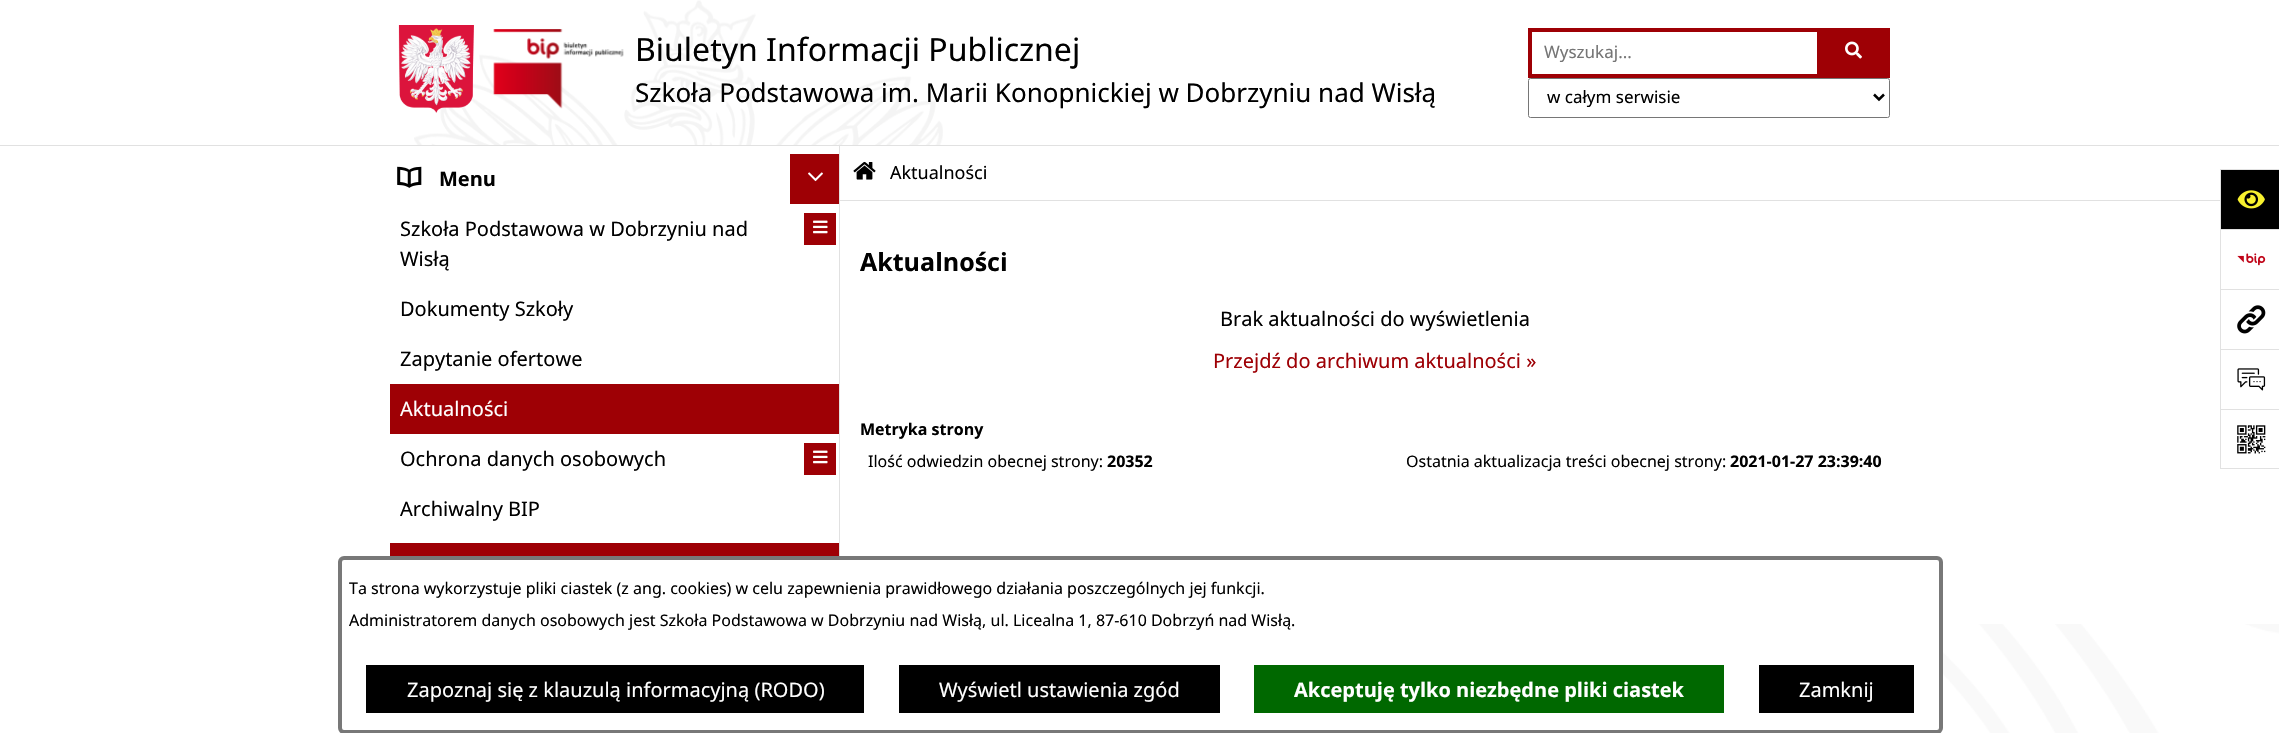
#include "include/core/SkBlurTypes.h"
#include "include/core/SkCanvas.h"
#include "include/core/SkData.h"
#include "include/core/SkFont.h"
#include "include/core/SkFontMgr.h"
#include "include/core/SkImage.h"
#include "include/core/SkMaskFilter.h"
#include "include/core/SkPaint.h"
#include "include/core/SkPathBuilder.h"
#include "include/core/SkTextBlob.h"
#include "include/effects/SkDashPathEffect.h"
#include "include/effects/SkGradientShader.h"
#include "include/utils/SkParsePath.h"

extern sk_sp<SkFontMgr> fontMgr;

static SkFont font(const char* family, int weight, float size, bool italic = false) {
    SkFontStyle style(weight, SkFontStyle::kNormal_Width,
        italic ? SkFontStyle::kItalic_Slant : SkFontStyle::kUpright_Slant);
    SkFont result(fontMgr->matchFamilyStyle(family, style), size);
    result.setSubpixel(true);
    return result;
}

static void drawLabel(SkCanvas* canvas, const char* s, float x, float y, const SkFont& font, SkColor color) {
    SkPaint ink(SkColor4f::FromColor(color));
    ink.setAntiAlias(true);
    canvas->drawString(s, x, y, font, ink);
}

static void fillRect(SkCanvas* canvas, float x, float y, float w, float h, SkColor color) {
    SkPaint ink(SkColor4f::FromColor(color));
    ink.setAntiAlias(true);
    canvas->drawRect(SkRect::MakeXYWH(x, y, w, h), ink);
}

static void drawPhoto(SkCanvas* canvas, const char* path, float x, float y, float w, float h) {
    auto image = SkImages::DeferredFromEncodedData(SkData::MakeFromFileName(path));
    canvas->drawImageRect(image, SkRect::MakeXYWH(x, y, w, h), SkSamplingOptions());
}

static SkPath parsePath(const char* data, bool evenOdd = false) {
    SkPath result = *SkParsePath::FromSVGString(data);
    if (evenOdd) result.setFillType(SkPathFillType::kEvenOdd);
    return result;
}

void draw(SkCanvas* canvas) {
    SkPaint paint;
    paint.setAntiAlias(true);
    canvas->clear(0xFFFFFFFF);
    fillRect(canvas, 839, 145, 1, 411, 0xFFE1E1E1);
    fillRect(canvas, 0, 145, 2279, 1, 0xFFE1E1E1);
    drawPhoto(canvas, "assets/img1.png", 414, 0, 529, 145);
    drawPhoto(canvas, "assets/img2.png", 398, 25, 76, 88);
    drawPhoto(canvas, "assets/img3.png", 493, 29, 131, 80);
    SkFont font1 = font("Noto Sans", 400, 32);
    drawLabel(canvas, "Biuletyn Informacji Publicznej", 635, 61, font1, 0xFF000000);
    SkFont font2 = font("Noto Sans", 400, 26);
    drawLabel(canvas, "Szkoła Podstawowa im. Marii Konopnickiej w Dobrzyniu nad Wisłą", 635, 102, font2, 0xFF000000);
    paint.setStroke(true);
    paint.setStrokeWidth(4);
    paint.setColor(0xFF9E0005);
    canvas->drawRect(SkRect::MakeXYWH(1530, 30, 289, 46), paint);
    SkFont font3 = font("Noto Sans", 400, 17);
    drawLabel(canvas, "Wyszukaj...", 1544, 58, font3, 0xFF757575);
    fillRect(canvas, 1821, 28, 69, 50, 0xFF9E0005);
    drawPhoto(canvas, "assets/img4.png", 1845, 41, 17, 18);
    paint.setStrokeWidth(1);
    paint.setColor(0xFF767676);
    canvas->drawRoundRect(SkRect::MakeXYWH(1528.5f, 78.5f, 361, 39), 2, 2, paint);
    paint.setStrokeWidth(2.5f);
    paint.setColor(0xFF000000);
    canvas->drawPath(parsePath("M1874 94.5L1879 99.5L1884 94.5"), paint);
    drawLabel(canvas, "w całym serwisie", 1547, 103, font3, 0xFF000000);
    drawPhoto(canvas, "assets/img5.png", 397, 166, 25, 22);
    SkFont font4 = font("Noto Sans", 700, 20);
    drawLabel(canvas, "Menu", 439, 186, font4, 0xFF000000);
    fillRect(canvas, 790, 154, 49, 50, 0xFF9E0005);
    drawPhoto(canvas, "assets/img6.png", 808, 172, 15, 10);
    SkFont font5 = font("Noto Sans", 400, 20);
    drawLabel(canvas, "Szkoła Podstawowa w Dobrzyniu nad", 400, 236, font5, 0xFF000000);
    drawLabel(canvas, "Wisłą", 400, 266, font5, 0xFF000000);
    fillRect(canvas, 804, 213, 32, 32, 0xFF9E0005);
    drawPhoto(canvas, "assets/img7.png", 813, 220, 15, 14);
    drawLabel(canvas, "Dokumenty Szkoły", 400, 316, font5, 0xFF000000);
    drawLabel(canvas, "Zapytanie ofertowe", 400, 366, font5, 0xFF000000);
    fillRect(canvas, 390, 384, 449, 50, 0xFF9E0005);
    drawLabel(canvas, "Aktualności", 400, 416, font5, 0xFFFFFFFF);
    drawLabel(canvas, "Ochrona danych osobowych", 400, 466, font5, 0xFF000000);
    fillRect(canvas, 804, 443, 32, 32, 0xFF9E0005);
    drawPhoto(canvas, "assets/img7.png", 813, 450, 15, 14);
    drawLabel(canvas, "Archiwalny BIP", 400, 516, font5, 0xFF000000);
    fillRect(canvas, 2221, 170, 58, 59, 0xFF000000);
    fillRect(canvas, 2220, 169, 59, 1, 0xFFE1E1E1);
    fillRect(canvas, 2220, 169, 1, 60, 0xFFE1E1E1);
    drawPhoto(canvas, "assets/img8.png", 2237, 190, 28, 19);
    fillRect(canvas, 2220, 229, 59, 1, 0xFFE1E1E1);
    fillRect(canvas, 2220, 229, 1, 60, 0xFFE1E1E1);
    drawPhoto(canvas, "assets/img9.png", 2237, 253, 29, 13);
    fillRect(canvas, 2220, 289, 59, 1, 0xFFE1E1E1);
    fillRect(canvas, 2220, 289, 1, 60, 0xFFE1E1E1);
    drawPhoto(canvas, "assets/img10.png", 2237, 305, 29, 29);
    fillRect(canvas, 2220, 349, 59, 1, 0xFFE1E1E1);
    fillRect(canvas, 2220, 349, 1, 60, 0xFFE1E1E1);
    drawPhoto(canvas, "assets/img11.png", 2237, 368, 29, 23);
    fillRect(canvas, 2220, 409, 59, 1, 0xFFE1E1E1);
    fillRect(canvas, 2220, 468, 59, 1, 0xFFE1E1E1);
    fillRect(canvas, 2220, 409, 1, 60, 0xFFE1E1E1);
    drawPhoto(canvas, "assets/img12.png", 2237, 425, 29, 29);
    fillRect(canvas, 390, 543, 449, 13, 0xFF9E0005);
    fillRect(canvas, 840, 200, 1380, 1, 0xFFE1E1E1);
    drawPhoto(canvas, "assets/img13.png", 853, 161, 23, 19);
    SkFont font6 = font("Noto Sans", 400, 18);
    drawLabel(canvas, "Aktualności", 890, 179, font6, 0xFF000000);
    SkFont font7 = font("Noto Sans", 700, 25);
    drawLabel(canvas, "Aktualności", 860, 271, font7, 0xFF000000);
    drawLabel(canvas, "Brak aktualności do wyświetlenia", 1220, 326, font5, 0xFF000000);
    drawLabel(canvas, "Przejdź do archiwum aktualności »", 1213, 368, font5, 0xFF9E0005);
    SkFont font8 = font("Noto Sans", 700, 16);
    drawLabel(canvas, "Metryka strony", 860, 435, font8, 0xFF000000);
    SkFont font9 = font("Noto Sans", 400, 16);
    drawLabel(canvas, "Ilość odwiedzin obecnej strony:", 868, 467, font9, 0xFF000000);
    drawLabel(canvas, "20352", 1107, 467, font8, 0xFF000000);
    drawLabel(canvas, "Ostatnia aktualizacja treści obecnej strony:", 1406, 467, font9, 0xFF000000);
    drawLabel(canvas, "2021-01-27 23:39:40", 1730, 467, font8, 0xFF000000);
    drawPhoto(canvas, "assets/img14.png", 1943, 624, 336, 109);
    paint.setStrokeWidth(4);
    paint.setColor(0xFF787878);
    canvas->drawRoundRect(SkRect::MakeXYWH(340, 558, 1601, 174), 4, 4, paint);
    drawLabel(canvas, "Ta strona wykorzystuje pliki ciastek (z ang. cookies) w celu zapewnienia prawidłowego działania poszczególnych jej funkcji.", 349, 594, font9, 0xFF000000);
    drawLabel(canvas, "Administratorem danych osobowych jest Szkoła Podstawowa w Dobrzyniu nad Wisłą, ul. Licealna 1, 87-610 Dobrzyń nad Wisłą.", 349, 626, font9, 0xFF000000);
    fillRect(canvas, 366, 665, 498, 48, 0xFF000000);
    drawLabel(canvas, "Zapoznaj się z klauzulą informacyjną (RODO)", 407, 697, font5, 0xFFFFFFFF);
    fillRect(canvas, 899, 665, 321, 48, 0xFF000000);
    drawLabel(canvas, "Wyświetl ustawienia zgód", 939, 697, font5, 0xFFFFFFFF);
    fillRect(canvas, 1254, 665, 470, 48, 0xFF006800);
    drawLabel(canvas, "Akceptuję tylko niezbędne pliki ciastek", 1294, 697, font4, 0xFFFFFFFF);
    fillRect(canvas, 1759, 665, 155, 48, 0xFF000000);
    drawLabel(canvas, "Zamknij", 1799, 697, font5, 0xFFFFFFFF);
}
